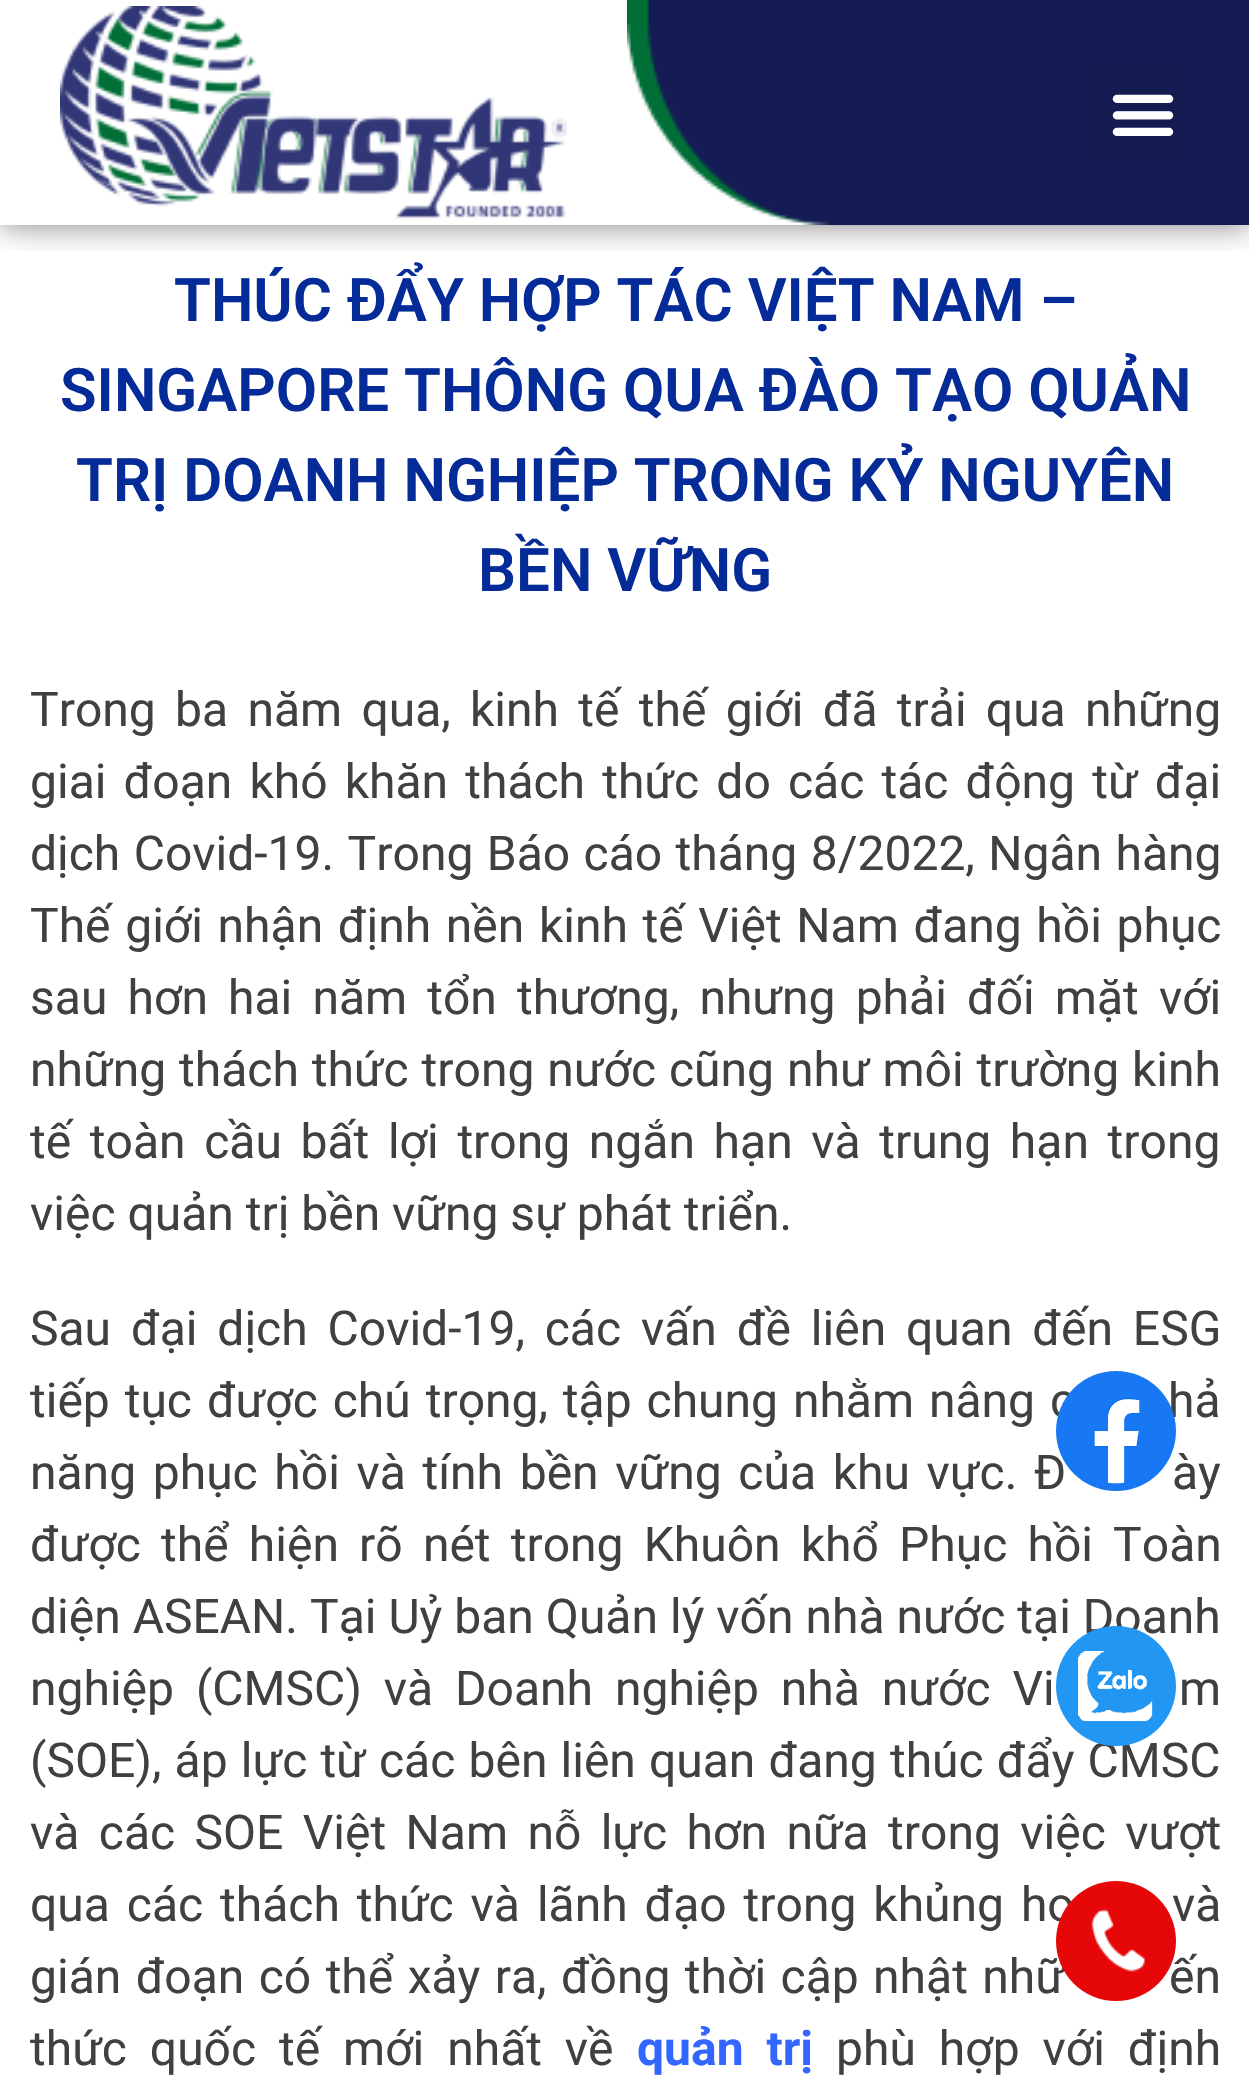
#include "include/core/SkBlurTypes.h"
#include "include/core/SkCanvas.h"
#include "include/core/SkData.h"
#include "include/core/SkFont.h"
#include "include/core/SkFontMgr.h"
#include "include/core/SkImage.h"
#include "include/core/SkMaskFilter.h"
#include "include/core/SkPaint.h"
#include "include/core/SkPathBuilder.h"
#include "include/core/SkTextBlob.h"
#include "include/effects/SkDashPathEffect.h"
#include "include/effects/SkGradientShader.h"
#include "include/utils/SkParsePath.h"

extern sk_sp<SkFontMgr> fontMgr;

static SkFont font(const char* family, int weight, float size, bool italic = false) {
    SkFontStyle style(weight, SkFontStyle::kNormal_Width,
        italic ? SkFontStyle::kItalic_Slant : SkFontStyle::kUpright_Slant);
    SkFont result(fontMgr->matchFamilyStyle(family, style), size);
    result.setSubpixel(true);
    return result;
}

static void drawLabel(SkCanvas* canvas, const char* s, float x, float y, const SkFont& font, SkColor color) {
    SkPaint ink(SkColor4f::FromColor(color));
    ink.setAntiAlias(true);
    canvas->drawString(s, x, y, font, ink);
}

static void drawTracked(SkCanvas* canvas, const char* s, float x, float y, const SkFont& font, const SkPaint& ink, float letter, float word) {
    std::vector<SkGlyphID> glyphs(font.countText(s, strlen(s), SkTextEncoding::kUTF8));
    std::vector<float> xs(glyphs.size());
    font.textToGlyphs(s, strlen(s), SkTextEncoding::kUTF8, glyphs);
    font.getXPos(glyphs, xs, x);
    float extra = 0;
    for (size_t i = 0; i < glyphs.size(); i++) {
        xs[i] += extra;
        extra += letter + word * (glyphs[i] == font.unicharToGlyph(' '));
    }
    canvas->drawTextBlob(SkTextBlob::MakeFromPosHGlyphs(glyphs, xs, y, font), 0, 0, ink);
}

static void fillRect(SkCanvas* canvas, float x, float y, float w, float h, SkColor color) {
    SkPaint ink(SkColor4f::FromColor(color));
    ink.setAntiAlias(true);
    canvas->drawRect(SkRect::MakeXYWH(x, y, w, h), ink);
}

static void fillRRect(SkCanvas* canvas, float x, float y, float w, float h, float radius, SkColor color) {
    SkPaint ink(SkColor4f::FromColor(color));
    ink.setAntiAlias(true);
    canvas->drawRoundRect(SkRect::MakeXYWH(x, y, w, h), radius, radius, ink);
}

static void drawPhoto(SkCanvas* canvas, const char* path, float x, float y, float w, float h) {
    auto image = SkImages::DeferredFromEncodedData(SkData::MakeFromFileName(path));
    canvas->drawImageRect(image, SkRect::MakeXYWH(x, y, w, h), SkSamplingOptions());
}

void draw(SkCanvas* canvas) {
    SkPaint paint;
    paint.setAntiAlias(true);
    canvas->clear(0xFFFFFFFF);
    canvas->save();
    canvas->clipRect(SkRect::MakeXYWH(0, 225, 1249, 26));
    paint.setColor(0x80000000);
    paint.setMaskFilter(SkMaskFilter::MakeBlur(kNormal_SkBlurStyle, 15));
    canvas->drawRect(SkRect::MakeXYWH(0, 0, 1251, 225), paint);
    paint.setMaskFilter(nullptr);
    canvas->restore();
    fillRect(canvas, 876, 0, 373, 225, 0xFF151C55);
    drawPhoto(canvas, "assets/img1.png", 60, 6, 507, 213);
    drawPhoto(canvas, "assets/img2.png", 627, 0, 249, 225);
    fillRRect(canvas, 1092, 63, 99, 99, 9, 0xFF141B51);
    drawPhoto(canvas, "assets/img3.png", 1112, 94, 62, 42);
    SkFont font1 = font("Roboto", 600, 60);
    drawLabel(canvas, "THÚC ĐẨY HỢP TÁC VIỆT NAM –", 174, 321, font1, 0xFF052B98);
    drawLabel(canvas, "SINGAPORE THÔNG QUA ĐÀO TẠO QUẢN", 60, 411, font1, 0xFF052B98);
    drawLabel(canvas, "TRỊ DOANH NGHIỆP TRONG KỶ NGUYÊN", 76, 501, font1, 0xFF052B98);
    drawLabel(canvas, "BỀN VỮNG", 478, 591, font1, 0xFF052B98);
    SkFont font2 = font("Roboto", 400, 48);
    paint.setColor(0xFF404040);
    drawTracked(canvas, "Trong ba năm qua, kinh tế thế giới đã trải qua những", 30, 726, font2, paint, 0, 7.4f);
    drawTracked(canvas, "giai đoạn khó khăn thách thức do các tác động từ đại", 30, 798, font2, paint, 0, 5.25f);
    drawTracked(canvas, "dịch Covid-19. Trong Báo cáo tháng 8/2022, Ngân hàng", 30, 870, font2, paint, 0, 1.5f);
    drawTracked(canvas, "Thế giới nhận định nền kinh tế Việt Nam đang hồi phục", 30, 942, font2, paint, 0, 2.75f);
    drawTracked(canvas, "sau hơn hai năm tổn thương, nhưng phải đối mặt với", 30, 1014, font2, paint, 0, 8.25f);
    drawTracked(canvas, "những thách thức trong nước cũng như môi trường kinh", 30, 1086, font2, paint, 0, 1);
    drawTracked(canvas, "tế toàn cầu bất lợi trong ngắn hạn và trung hạn trong", 30, 1158, font2, paint, 0, 6.75f);
    drawLabel(canvas, "việc quản trị bền vững sự phát triển.", 30, 1230, font2, 0xFF404040);
    drawTracked(canvas, "Sau đại dịch Covid-19, các vấn đề liên quan đến ESG", 30, 1345, font2, paint, 0, 8);
    drawTracked(canvas, "tiếp tục được chú trọng, tập chung nhằm nâng c", 30, 1417, font2, paint, 0, 3);
    drawTracked(canvas, "hả", 1168, 1417, font2, paint, 0, 3);
    drawTracked(canvas, "năng phục hồi và tính bền vững của khu vực. Đ", 30, 1489, font2, paint, 0, 4.75f);
    drawTracked(canvas, "ày", 1172, 1489, font2, paint, 0, 4.75f);
    drawTracked(canvas, "được thể hiện rõ nét trong Khuôn khổ Phục hồi Toàn", 30, 1561, font2, paint, 0, 8.25f);
    drawTracked(canvas, "diện ASEAN. Tại Uỷ ban Quản lý vốn nhà nước tại Doanh", 30, 1633, font2, paint, 0, 0.1f);
    drawTracked(canvas, "nghiệp (CMSC) và Doanh nghiệp nhà nước Vi", 30, 1705, font2, paint, 0, 10);
    drawTracked(canvas, "m", 1179, 1705, font2, paint, 0, 10);
    drawTracked(canvas, "(SOE), áp lực từ các bên liên quan đang thúc đẩy CMSC", 30, 1777, font2, paint, 0, 1.25f);
    drawTracked(canvas, "và các SOE Việt Nam nỗ lực hơn nữa trong việc vượt", 30, 1849, font2, paint, 0, 7.5f);
    drawTracked(canvas, "qua các thách thức và lãnh đạo trong khủng ho", 30, 1921, font2, paint, 0, 5);
    drawTracked(canvas, "và", 1172, 1921, font2, paint, 0, 5);
    drawTracked(canvas, "gián đoạn có thể xảy ra, đồng thời cập nhật nhữ", 30, 1993, font2, paint, 0, 2.5f);
    drawTracked(canvas, "ến", 1169, 1993, font2, paint, 0, 2.5f);
    drawTracked(canvas, "thức quốc tế mới nhất về", 30, 2065, font2, paint, 0, 11);
    SkFont font3 = font("Roboto", 700, 48);
    paint.setColor(0xFF3366FF);
    drawTracked(canvas, "quản trị", 637, 2065, font3, paint, 0, 11);
    paint.setColor(0xFF404040);
    drawTracked(canvas, "phù hợp với định", 836, 2065, font2, paint, 0, 11);
    paint.setColor(0xFF1877F2);
    canvas->drawCircle(1116, 1431, 60, paint);
    drawPhoto(canvas, "assets/img4.png", 1094, 1398, 46, 86);
    paint.setColor(0xFF2196F3);
    canvas->drawCircle(1116, 1686, 60, paint);
    drawPhoto(canvas, "assets/img5.png", 1078, 1651, 75, 71);
    paint.setColor(0xFFE60808);
    canvas->drawCircle(1116, 1941, 60, paint);
    drawPhoto(canvas, "assets/img6.png", 1091, 1909, 54, 63);
}
